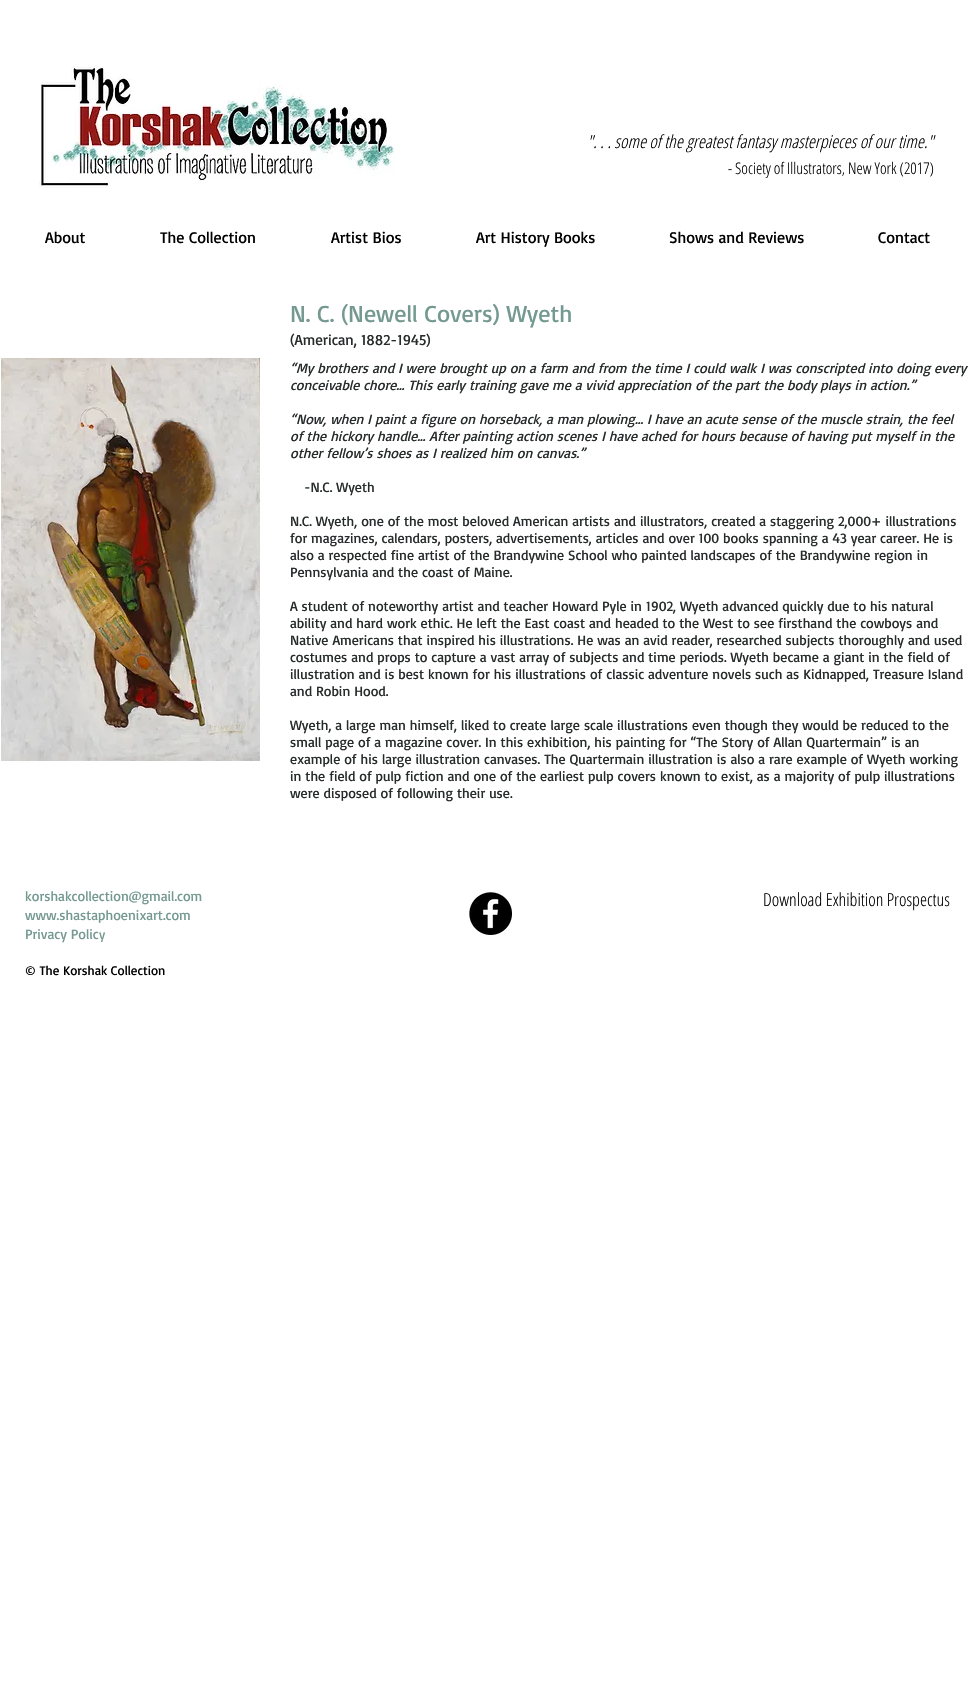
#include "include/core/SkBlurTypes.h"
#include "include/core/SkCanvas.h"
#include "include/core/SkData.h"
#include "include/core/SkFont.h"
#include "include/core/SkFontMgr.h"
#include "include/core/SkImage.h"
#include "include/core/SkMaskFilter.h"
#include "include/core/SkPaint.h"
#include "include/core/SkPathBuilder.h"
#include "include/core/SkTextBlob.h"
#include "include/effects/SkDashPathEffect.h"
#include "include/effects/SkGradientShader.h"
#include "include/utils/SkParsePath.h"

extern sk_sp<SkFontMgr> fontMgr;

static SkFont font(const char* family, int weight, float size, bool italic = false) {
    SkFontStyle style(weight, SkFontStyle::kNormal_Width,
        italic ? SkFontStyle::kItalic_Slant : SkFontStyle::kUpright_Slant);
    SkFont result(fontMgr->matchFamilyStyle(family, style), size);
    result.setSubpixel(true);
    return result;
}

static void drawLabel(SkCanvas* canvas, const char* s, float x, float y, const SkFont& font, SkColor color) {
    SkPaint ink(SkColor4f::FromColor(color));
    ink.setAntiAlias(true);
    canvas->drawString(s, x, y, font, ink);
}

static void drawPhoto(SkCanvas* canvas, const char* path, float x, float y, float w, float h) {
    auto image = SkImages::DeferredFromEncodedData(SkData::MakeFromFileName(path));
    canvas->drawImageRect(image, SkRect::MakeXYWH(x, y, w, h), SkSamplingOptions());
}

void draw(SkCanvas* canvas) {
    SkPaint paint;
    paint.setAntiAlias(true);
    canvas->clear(0xFFFFFFFF);
    drawPhoto(canvas, "assets/img1.png", 39, 66, 356, 122);
    SkFont font1 = font("Open Sans Condensed", 300, 18, true);
    drawLabel(canvas, "\". . . some of the greatest fantasy masterpieces of our time.\"", 587, 148, font1, 0xFF000000);
    SkFont font2 = font("Open Sans Condensed", 300, 16);
    drawLabel(canvas, "- Society of Illustrators, New York (2017)", 728, 174, font2, 0xFF000000);
    SkFont font3 = font("Basic", 400, 16);
    drawLabel(canvas, "About", 45, 243, font3, 0xFF000000);
    drawLabel(canvas, "The Collection", 160, 243, font3, 0xFF000000);
    drawLabel(canvas, "Artist Bios", 331, 243, font3, 0xFF000000);
    drawLabel(canvas, "Art History Books", 476, 243, font3, 0xFF000000);
    drawLabel(canvas, "Shows and Reviews", 669, 243, font3, 0xFF000000);
    drawLabel(canvas, "Contact", 878, 243, font3, 0xFF000000);
    SkFont font4 = font("Basic", 400, 24);
    drawLabel(canvas, "N. C. (Newell Covers) Wyeth", 290, 322, font4, 0xFF749990);
    SkFont font5 = font("Basic", 400, 15);
    drawLabel(canvas, "(American, 1882-1945)", 290, 345, font5, 0xFF262C2B);
    drawPhoto(canvas, "assets/img2.png", 1, 358, 259, 403);
    SkFont font6 = font("Basic", 400, 14, true);
    drawLabel(canvas, "“My brothers and I were brought up on a farm and from the time I could walk I was conscripted into doing every", 290, 373, font6, 0xFF262C2B);
    drawLabel(canvas, "conceivable chore… This early training gave me a vivid appreciation of the part the body plays in action.”", 290, 390, font6, 0xFF262C2B);
    drawLabel(canvas, "“Now, when I paint a figure on horseback, a man plowing… I have an acute sense of the muscle strain, the feel", 290, 424, font6, 0xFF262C2B);
    drawLabel(canvas, "of the hickory handle… After painting action scenes I have ached for hours because of having put myself in the", 290, 441, font6, 0xFF262C2B);
    drawLabel(canvas, "other fellow’s shoes as I realized him on canvas.”", 290, 458, font6, 0xFF262C2B);
    SkFont font7 = font("Basic", 400, 14);
    drawLabel(canvas, "-N.C. Wyeth", 304, 492, font7, 0xFF262C2B);
    drawLabel(canvas, "N.C. Wyeth, one of the most beloved American artists and illustrators, created a staggering 2,000+ illustrations", 290, 526, font7, 0xFF262C2B);
    drawLabel(canvas, "for magazines, calendars, posters, advertisements, articles and over 100 books spanning a 43 year career. He is", 290, 543, font7, 0xFF262C2B);
    drawLabel(canvas, "also a respected fine artist of the Brandywine School who painted landscapes of the Brandywine region in", 290, 560, font7, 0xFF262C2B);
    drawLabel(canvas, "Pennsylvania and the coast of Maine.", 290, 577, font7, 0xFF262C2B);
    drawLabel(canvas, "A student of noteworthy artist and teacher Howard Pyle in 1902, Wyeth advanced quickly due to his natural", 290, 611, font7, 0xFF262C2B);
    drawLabel(canvas, "ability and hard work ethic. He left the East coast and headed to the West to see firsthand the cowboys and", 290, 628, font7, 0xFF262C2B);
    drawLabel(canvas, "Native Americans that inspired his illustrations. He was an avid reader, researched subjects thoroughly and used", 290, 645, font7, 0xFF262C2B);
    drawLabel(canvas, "costumes and props to capture a vast array of subjects and time periods. Wyeth became a giant in the field of", 290, 662, font7, 0xFF262C2B);
    drawLabel(canvas, "illustration and is best known for his illustrations of classic adventure novels such as Kidnapped, Treasure Island", 290, 679, font7, 0xFF262C2B);
    drawLabel(canvas, "and Robin Hood.", 290, 696, font7, 0xFF262C2B);
    drawLabel(canvas, "Wyeth, a large man himself, liked to create large scale illustrations even though they would be reduced to the", 290, 730, font7, 0xFF262C2B);
    drawLabel(canvas, "small page of a magazine cover. In this exhibition, his painting for “The Story of Allan Quartermain” is an", 290, 747, font7, 0xFF262C2B);
    drawLabel(canvas, "example of his large illustration canvases. The Quartermain illustration is also a rare example of Wyeth working", 290, 764, font7, 0xFF262C2B);
    drawLabel(canvas, "in the field of pulp fiction and one of the earliest pulp covers known to exist, as a majority of pulp illustrations", 290, 781, font7, 0xFF262C2B);
    drawLabel(canvas, "were disposed of following their use.", 290, 798, font7, 0xFF262C2B);
    drawLabel(canvas, "korshakcollection@gmail.com", 25, 901, font7, 0xFF749990);
    drawLabel(canvas, "www.shastaphoenixart.com", 25, 920, font7, 0xFF749990);
    drawLabel(canvas, "Privacy Polic", 25, 939, font7, 0xFF749990);
    SkFont font8 = font("Basic", 400, 13);
    drawLabel(canvas, "y", 99, 939, font8, 0xFF749990);
    drawLabel(canvas, "© The Korshak Collection", 25, 975, font8, 0xFF000000);
    drawPhoto(canvas, "assets/img3.png", 469, 892, 43, 43);
    SkFont font9 = font("Open Sans Condensed", 300, 18);
    drawLabel(canvas, "Download Exhibition Prospectus", 763, 906, font9, 0xFF000000);
}
